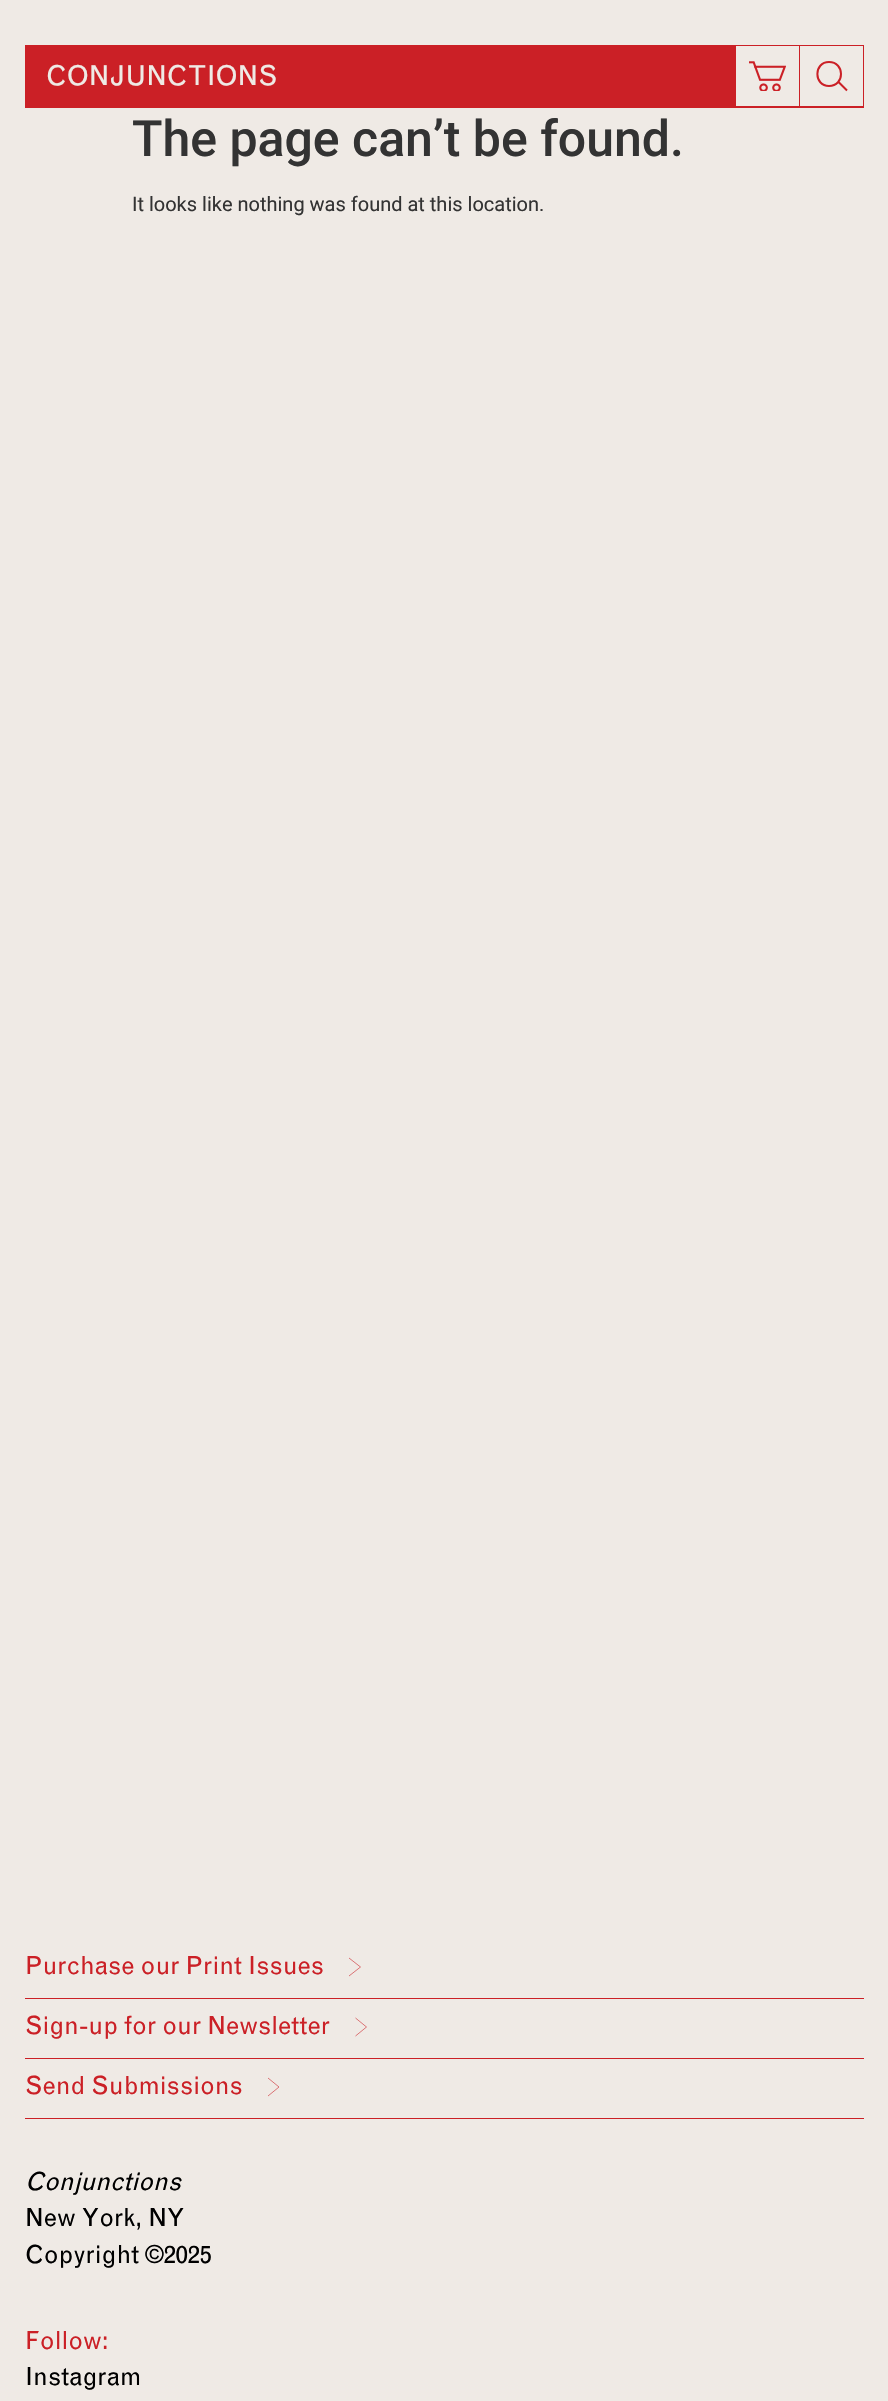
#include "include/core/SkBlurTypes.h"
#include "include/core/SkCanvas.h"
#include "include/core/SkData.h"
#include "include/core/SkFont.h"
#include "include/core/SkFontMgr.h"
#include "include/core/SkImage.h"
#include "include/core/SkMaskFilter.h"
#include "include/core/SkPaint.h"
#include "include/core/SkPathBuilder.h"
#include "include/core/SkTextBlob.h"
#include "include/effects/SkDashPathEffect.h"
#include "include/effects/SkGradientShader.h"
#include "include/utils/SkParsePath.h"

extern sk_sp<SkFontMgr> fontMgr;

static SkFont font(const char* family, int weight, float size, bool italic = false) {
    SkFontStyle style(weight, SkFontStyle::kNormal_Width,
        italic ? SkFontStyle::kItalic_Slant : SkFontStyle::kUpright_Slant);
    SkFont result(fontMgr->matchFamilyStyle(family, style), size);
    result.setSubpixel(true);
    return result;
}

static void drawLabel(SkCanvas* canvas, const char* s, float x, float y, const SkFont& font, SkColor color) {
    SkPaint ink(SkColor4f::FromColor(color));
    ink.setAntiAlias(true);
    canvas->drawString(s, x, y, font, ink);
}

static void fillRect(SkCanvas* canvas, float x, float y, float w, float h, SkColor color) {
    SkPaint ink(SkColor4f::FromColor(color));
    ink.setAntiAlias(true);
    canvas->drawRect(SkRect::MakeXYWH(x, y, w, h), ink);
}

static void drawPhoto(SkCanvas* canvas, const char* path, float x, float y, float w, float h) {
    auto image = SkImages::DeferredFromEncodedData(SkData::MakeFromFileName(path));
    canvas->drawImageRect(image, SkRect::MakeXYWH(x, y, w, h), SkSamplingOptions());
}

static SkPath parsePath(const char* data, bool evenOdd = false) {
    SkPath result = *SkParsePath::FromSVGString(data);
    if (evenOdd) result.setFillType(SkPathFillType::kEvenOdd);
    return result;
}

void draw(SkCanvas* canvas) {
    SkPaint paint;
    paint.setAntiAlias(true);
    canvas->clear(0xFFEFEAE5);
    fillRect(canvas, 25, 45, 839, 63, 0xFFCB2026);
    SkFont font1 = font("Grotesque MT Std", 400, 27.5f);
    drawLabel(canvas, "CONJUNCTIONS", 46, 85, font1, 0xFFEFEAE5);
    fillRect(canvas, 736, 46, 63, 60, 0xFFEFEAE5);
    drawPhoto(canvas, "assets/img1.png", 749, 61, 37, 30);
    fillRect(canvas, 800, 46, 63, 60, 0xFFEFEAE5);
    paint.setStroke(true);
    paint.setStrokeWidth(2);
    paint.setColor(0xFFCB2026);
    canvas->drawPath(parsePath("M829 86C845 86 845 62 829 62C813.5 62 813.5 86 829 86ZM839 82.5L847 90.5"), paint);
    SkFont font2 = font("Roboto", 500, 50);
    drawLabel(canvas, "The page can’t be found.", 132, 156, font2, 0xFF333333);
    SkFont font3 = font("Roboto", 400, 20);
    drawLabel(canvas, "It looks like nothing was found at this location.", 132, 211, font3, 0xFF333333);
    fillRect(canvas, 25, 1998, 839, 1, 0xFFCB2026);
    paint.setStrokeWidth(0.6f);
    canvas->drawPath(parsePath("M349 1976L360.5 1967L349 1958"), paint);
    SkFont font4 = font("Grotesque MT Std", 400, 25);
    drawLabel(canvas, "Purchase our Print Issues", 25, 1974, font4, 0xFFCB2026);
    fillRect(canvas, 25, 2058, 839, 1, 0xFFCB2026);
    canvas->drawPath(parsePath("M355.5 2036L366.5 2027L355.5 2018"), paint);
    drawLabel(canvas, "Sign-up for our Newsletter", 25, 2034, font4, 0xFFCB2026);
    fillRect(canvas, 25, 2118, 839, 1, 0xFFCB2026);
    canvas->drawPath(parsePath("M268 2096L279 2087L268 2078"), paint);
    drawLabel(canvas, "Send Submissions", 25, 2094, font4, 0xFFCB2026);
    SkFont font5 = font("Grotesque MT Std", 400, 25, true);
    drawLabel(canvas, "Conjunctions", 25, 2190, font5, 0xFF000000);
    drawLabel(canvas, "New York, NY", 25, 2226, font4, 0xFF000000);
    drawLabel(canvas, "Copyright ©2025", 25, 2263, font4, 0xFF000000);
    drawLabel(canvas, "Follow:", 25, 2349, font4, 0xFFCB2026);
    drawLabel(canvas, "Instagram", 25, 2385, font4, 0xFF000000);
}
